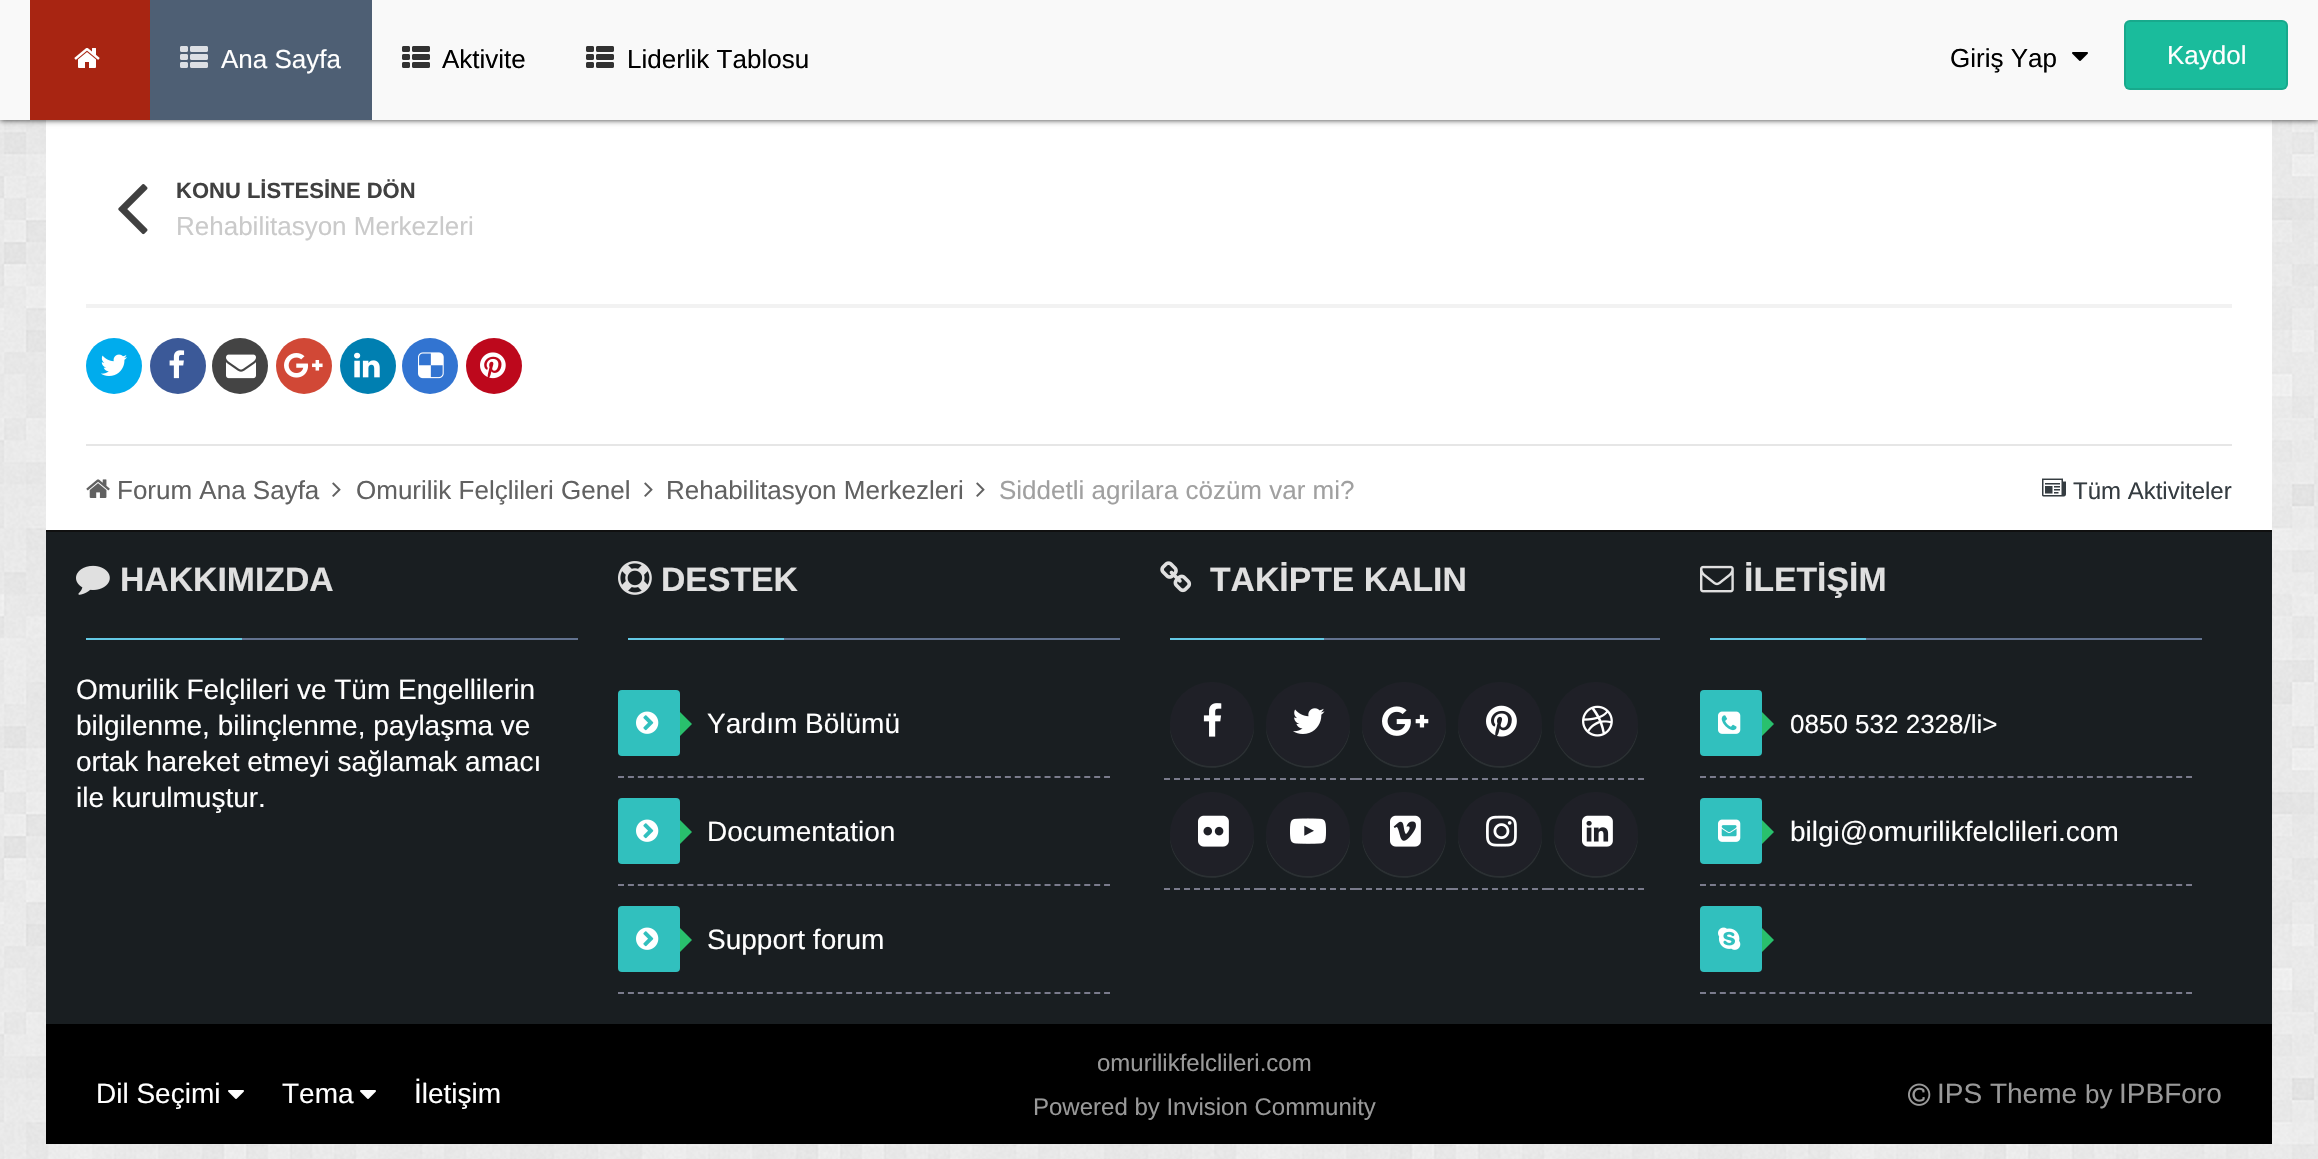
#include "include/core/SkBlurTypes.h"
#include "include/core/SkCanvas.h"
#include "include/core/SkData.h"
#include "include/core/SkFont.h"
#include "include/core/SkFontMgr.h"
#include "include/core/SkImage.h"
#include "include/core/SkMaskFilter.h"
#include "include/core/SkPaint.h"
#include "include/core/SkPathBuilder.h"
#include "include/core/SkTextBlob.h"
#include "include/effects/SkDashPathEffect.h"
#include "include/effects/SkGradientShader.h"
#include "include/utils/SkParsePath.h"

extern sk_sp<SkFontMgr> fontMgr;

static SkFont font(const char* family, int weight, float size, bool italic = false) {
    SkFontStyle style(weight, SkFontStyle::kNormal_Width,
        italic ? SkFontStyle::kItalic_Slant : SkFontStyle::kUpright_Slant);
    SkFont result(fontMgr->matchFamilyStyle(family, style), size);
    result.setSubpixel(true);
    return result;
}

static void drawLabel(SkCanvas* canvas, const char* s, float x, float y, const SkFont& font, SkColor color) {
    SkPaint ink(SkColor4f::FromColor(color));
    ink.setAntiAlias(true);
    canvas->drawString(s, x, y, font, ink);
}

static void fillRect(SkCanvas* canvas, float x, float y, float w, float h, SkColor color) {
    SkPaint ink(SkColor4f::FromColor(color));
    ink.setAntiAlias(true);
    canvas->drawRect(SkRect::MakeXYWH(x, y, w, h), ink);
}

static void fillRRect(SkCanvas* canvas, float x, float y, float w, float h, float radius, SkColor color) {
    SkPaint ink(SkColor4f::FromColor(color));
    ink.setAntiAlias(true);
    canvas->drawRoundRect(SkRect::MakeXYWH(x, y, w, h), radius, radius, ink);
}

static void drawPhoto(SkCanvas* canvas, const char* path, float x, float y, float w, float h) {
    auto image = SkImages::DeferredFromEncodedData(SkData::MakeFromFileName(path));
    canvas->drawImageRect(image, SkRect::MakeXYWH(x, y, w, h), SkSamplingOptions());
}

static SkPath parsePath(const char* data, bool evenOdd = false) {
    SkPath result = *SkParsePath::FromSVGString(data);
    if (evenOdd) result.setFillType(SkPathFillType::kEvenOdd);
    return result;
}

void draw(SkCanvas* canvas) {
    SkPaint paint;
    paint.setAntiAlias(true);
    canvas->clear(0xFFFFFFFF);
    drawPhoto(canvas, "assets/img1.png", 0, 120, 2318, 1039);
    fillRect(canvas, 46, 120, 2226, 410, 0xFFFFFFFF);
    paint.setColor(0xCC000000);
    paint.setMaskFilter(SkMaskFilter::MakeBlur(kNormal_SkBlurStyle, 3));
    canvas->drawRect(SkRect::MakeXYWH(0, 0, 2318, 120), paint);
    paint.setMaskFilter(nullptr);
    fillRect(canvas, 0, 0, 2318, 120, 0xFFF9F9F9);
    fillRect(canvas, 30, 0, 120, 120, 0xFFA82512);
    drawPhoto(canvas, "assets/img2.png", 74, 48, 26, 20);
    fillRect(canvas, 150, 0, 222, 120, 0xFF4E5F74);
    drawPhoto(canvas, "assets/img3.png", 180, 46, 28, 22);
    SkFont font1 = font("Liberation Sans", 400, 26);
    drawLabel(canvas, "Ana Sayfa", 221, 68, font1, 0xFFFFFFFF);
    drawPhoto(canvas, "assets/img4.png", 402, 46, 28, 22);
    drawLabel(canvas, "Aktivite", 442, 68, font1, 0xFF000000);
    drawPhoto(canvas, "assets/img4.png", 586, 46, 28, 22);
    drawLabel(canvas, "Liderlik Tablosu", 627, 68, font1, 0xFF000000);
    drawLabel(canvas, "Giriş Yap", 1950, 67, font1, 0xFF000000);
    drawPhoto(canvas, "assets/img5.png", 2072, 52, 16, 9);
    fillRRect(canvas, 2124, 20, 164, 70, 6, 0xFF1ABC9C);
    paint.setStroke(true);
    paint.setStrokeWidth(2);
    paint.setColor(0x1A000000);
    canvas->drawRoundRect(SkRect::MakeXYWH(2125, 21, 162, 68), 5, 5, paint);
    drawLabel(canvas, "Kaydol", 2167, 64, font1, 0xFFFFFFFF);
    drawPhoto(canvas, "assets/img6.png", 118, 184, 30, 51);
    SkFont font2 = font("Liberation Sans", 700, 22);
    drawLabel(canvas, "KONU LİSTESİNE DÖN", 176, 198, font2, 0xFF404040);
    drawLabel(canvas, "Rehabilitasyon Merkezleri", 176, 235, font1, 0xFFCACACA);
    fillRect(canvas, 86, 304, 2146, 4, 0xFFF2F2F2);
    paint.setStroke(false);
    paint.setColor(0xFF00ACED);
    canvas->drawCircle(114, 366, 28, paint);
    drawPhoto(canvas, "assets/img7.png", 101, 354, 26, 22);
    paint.setColor(0xFF3B5998);
    canvas->drawCircle(178, 366, 28, paint);
    drawPhoto(canvas, "assets/img8.png", 169, 350, 16, 29);
    paint.setColor(0xFF444444);
    canvas->drawCircle(240, 366, 28, paint);
    drawPhoto(canvas, "assets/img9.png", 226, 354, 30, 25);
    paint.setColor(0xFFD14836);
    canvas->drawCircle(304, 366, 28, paint);
    drawPhoto(canvas, "assets/img10.png", 284, 353, 39, 25);
    paint.setColor(0xFF007FB1);
    canvas->drawCircle(368, 366, 28, paint);
    drawPhoto(canvas, "assets/img11.png", 354, 352, 26, 26);
    paint.setColor(0xFF3274D1);
    canvas->drawCircle(430, 366, 28, paint);
    drawPhoto(canvas, "assets/img12.png", 418, 352, 26, 27);
    paint.setColor(0xFFBD081C);
    canvas->drawCircle(494, 366, 28, paint);
    drawPhoto(canvas, "assets/img13.png", 480, 352, 26, 27);
    fillRect(canvas, 86, 444, 2146, 2, 0xFFE6E6E6);
    drawPhoto(canvas, "assets/img14.png", 86, 479, 24, 19);
    drawLabel(canvas, "Forum Ana Sayfa", 117, 499, font1, 0xFF616161);
    drawPhoto(canvas, "assets/img15.png", 332, 482, 9, 15);
    drawLabel(canvas, "Omurilik Felçlileri Genel", 356, 499, font1, 0xFF616161);
    drawPhoto(canvas, "assets/img15.png", 644, 482, 9, 15);
    drawLabel(canvas, "Rehabilitasyon Merkezleri", 666, 499, font1, 0xFF616161);
    drawPhoto(canvas, "assets/img15.png", 976, 482, 9, 15);
    drawLabel(canvas, "Siddetli agrilara cözüm var mi?", 999, 499, font1, 0xFFA0A0A0);
    drawPhoto(canvas, "assets/img16.png", 2042, 478, 24, 19);
    SkFont font3 = font("Liberation Sans", 400, 24);
    drawLabel(canvas, "Tüm Aktiviteler", 2073, 499, font3, 0xFF353C41);
    fillRect(canvas, 46, 532, 2226, 492, 0xFF191E21);
    fillRect(canvas, 46, 530, 2226, 2, 0xFF101010);
    drawPhoto(canvas, "assets/img17.png", 76, 565, 34, 30);
    SkFont font4 = font("Liberation Sans", 700, 33.75f);
    drawLabel(canvas, "HAKKIMIZDA", 120, 591, font4, 0xFFE0E0E0);
    fillRect(canvas, 242, 638, 336, 2, 0xFF62728F);
    fillRect(canvas, 86, 638, 156, 2, 0xFF64C9E4);
    SkFont font5 = font("Liberation Sans", 400, 28);
    drawLabel(canvas, "Omurilik Felçlileri ve Tüm Engellilerin", 76, 699, font5, 0xFFFFFFFF);
    drawLabel(canvas, "bilgilenme, bilinçlenme, paylaşma ve", 76, 735, font5, 0xFFFFFFFF);
    drawLabel(canvas, "ortak hareket etmeyi sağlamak amacı", 76, 771, font5, 0xFFFFFFFF);
    drawLabel(canvas, "ile kurulmuştur.", 76, 807, font5, 0xFFFFFFFF);
    drawPhoto(canvas, "assets/img18.png", 618, 561, 34, 34);
    drawLabel(canvas, "DESTEK", 661, 591, font4, 0xFFE0E0E0);
    fillRect(canvas, 784, 638, 336, 2, 0xFF62728F);
    fillRect(canvas, 628, 638, 156, 2, 0xFF64C9E4);
    paint.setStroke(true);
    paint.setColor(0xFF7A7B8C);
    paint.setPathEffect(SkDashPathEffect::Make({{6, 3.92f}}, 0));
    canvas->drawPath(parsePath("M618 777H1110"), paint);
    paint.setPathEffect(nullptr);
    fillRRect(canvas, 618, 690, 62, 66, 4, 0xFF31C0BE);
    drawPhoto(canvas, "assets/img19.png", 636, 711, 23, 23);
    paint.setStroke(false);
    paint.setColor(0xFF29C06D);
    canvas->drawPath(parsePath("M680 736V712L692 724Z"), paint);
    drawLabel(canvas, "Yardım Bölümü", 707, 733, font5, 0xFFFFFFFF);
    paint.setStroke(true);
    paint.setColor(0xFF7A7B8C);
    paint.setPathEffect(SkDashPathEffect::Make({{6, 3.92f}}, 0));
    canvas->drawPath(parsePath("M618 885H1110"), paint);
    paint.setPathEffect(nullptr);
    fillRRect(canvas, 618, 798, 62, 66, 4, 0xFF31C0BE);
    drawPhoto(canvas, "assets/img19.png", 636, 819, 23, 23);
    paint.setStroke(false);
    paint.setColor(0xFF29C06D);
    canvas->drawPath(parsePath("M680 844V820L692 832Z"), paint);
    drawLabel(canvas, "Documentation", 707, 841, font5, 0xFFFFFFFF);
    paint.setStroke(true);
    paint.setColor(0xFF7A7B8C);
    paint.setPathEffect(SkDashPathEffect::Make({{6, 3.92f}}, 0));
    canvas->drawPath(parsePath("M618 993H1110"), paint);
    paint.setPathEffect(nullptr);
    fillRRect(canvas, 618, 906, 62, 66, 4, 0xFF31C0BE);
    drawPhoto(canvas, "assets/img19.png", 636, 927, 23, 23);
    paint.setStroke(false);
    paint.setColor(0xFF29C06D);
    canvas->drawPath(parsePath("M680 952V928L692 940Z"), paint);
    drawLabel(canvas, "Support forum", 707, 949, font5, 0xFFFFFFFF);
    drawPhoto(canvas, "assets/img20.png", 1160, 561, 32, 32);
    drawLabel(canvas, "TAKİPTE KALIN", 1210, 591, font4, 0xFFE0E0E0);
    fillRect(canvas, 1324, 638, 336, 2, 0xFF62728F);
    fillRect(canvas, 1170, 638, 154, 2, 0xFF64C9E4);
    paint.setStroke(true);
    paint.setColor(0xFF7A7B8C);
    paint.setPathEffect(SkDashPathEffect::Make({{6, 4}}, 0));
    canvas->drawPath(parsePath("M1164 779H1260"), paint);
    paint.setPathEffect(nullptr);
    paint.setStroke(false);
    paint.setColor(0xFF2B3033);
    canvas->drawPath(parsePath("M1170 725C1170 734 1172 742 1177 749C1200 784 1255 767 1254 725C1253 748 1235 766 1212 766C1189 766 1171 748 1170 725Z"), paint);
    paint.setColor(0xFF1F2027);
    canvas->drawCircle(1212, 724, 42, paint);
    drawPhoto(canvas, "assets/img21.png", 1203, 703, 19, 34);
    paint.setStroke(true);
    paint.setColor(0xFF7A7B8C);
    paint.setPathEffect(SkDashPathEffect::Make({{6, 4}}, 0));
    canvas->drawPath(parsePath("M1260 779H1356"), paint);
    paint.setPathEffect(nullptr);
    paint.setStroke(false);
    paint.setColor(0xFF2B3033);
    canvas->drawPath(parsePath("M1266 725C1265 767 1320 784 1343 749C1348 742 1350 734 1350 725C1349 748 1331 766 1308 766C1285 766 1267 748 1266 725Z"), paint);
    paint.setColor(0xFF1F2027);
    canvas->drawCircle(1308, 724, 42, paint);
    drawPhoto(canvas, "assets/img22.png", 1293, 708, 32, 26);
    paint.setStroke(true);
    paint.setColor(0xFF7A7B8C);
    paint.setPathEffect(SkDashPathEffect::Make({{6, 4}}, 0));
    canvas->drawPath(parsePath("M1356 779H1452"), paint);
    paint.setPathEffect(nullptr);
    paint.setStroke(false);
    paint.setColor(0xFF2B3033);
    canvas->drawPath(parsePath("M1362 725C1362 734 1364 742 1369 749C1392 784 1447 767 1446 725C1445 748 1427 766 1404 766C1381 766 1363 748 1362 725Z"), paint);
    paint.setColor(0xFF1F2027);
    canvas->drawCircle(1404, 724, 42, paint);
    drawPhoto(canvas, "assets/img23.png", 1382, 706, 47, 30);
    paint.setStroke(true);
    paint.setColor(0xFF7A7B8C);
    paint.setPathEffect(SkDashPathEffect::Make({{6, 4}}, 0));
    canvas->drawPath(parsePath("M1452 779H1548"), paint);
    paint.setPathEffect(nullptr);
    paint.setStroke(false);
    paint.setColor(0xFF2B3033);
    canvas->drawPath(parsePath("M1458 725C1458 734 1460 742 1465 749C1488 784 1543 767 1542 725C1541 748 1523 766 1500 766C1477 766 1459 748 1458 725Z"), paint);
    paint.setColor(0xFF1F2027);
    canvas->drawCircle(1500, 724, 42, paint);
    drawPhoto(canvas, "assets/img24.png", 1486, 705, 31, 32);
    paint.setStroke(true);
    paint.setColor(0xFF7A7B8C);
    paint.setPathEffect(SkDashPathEffect::Make({{6, 4}}, 0));
    canvas->drawPath(parsePath("M1548 779H1644"), paint);
    paint.setPathEffect(nullptr);
    paint.setStroke(false);
    paint.setColor(0xFF2B3033);
    canvas->drawPath(parsePath("M1554 725C1554 734 1556 742 1561 749C1584 784 1639 767 1638 725C1637 748 1619 766 1596 766C1573 766 1555 748 1554 725Z"), paint);
    paint.setColor(0xFF1F2027);
    canvas->drawCircle(1596, 724, 42, paint);
    drawPhoto(canvas, "assets/img25.png", 1582, 705, 31, 32);
    paint.setStroke(true);
    paint.setColor(0xFF7A7B8C);
    paint.setPathEffect(SkDashPathEffect::Make({{6, 4}}, 0));
    canvas->drawPath(parsePath("M1164 889H1260"), paint);
    paint.setPathEffect(nullptr);
    paint.setStroke(false);
    paint.setColor(0xFF2B3033);
    canvas->drawPath(parsePath("M1170 835C1170 844 1172 852 1177 859C1200 894 1255 877 1254 835C1253 858 1235 876 1212 876C1189 876 1171 858 1170 835Z"), paint);
    paint.setColor(0xFF1F2027);
    canvas->drawCircle(1212, 834, 42, paint);
    drawPhoto(canvas, "assets/img26.png", 1198, 815, 31, 32);
    paint.setStroke(true);
    paint.setColor(0xFF7A7B8C);
    paint.setPathEffect(SkDashPathEffect::Make({{6, 4}}, 0));
    canvas->drawPath(parsePath("M1260 889H1356"), paint);
    paint.setPathEffect(nullptr);
    paint.setStroke(false);
    paint.setColor(0xFF2B3033);
    canvas->drawPath(parsePath("M1266 835C1266 844 1268 852 1273 859C1296 894 1351 877 1350 835C1349 858 1331 876 1308 876C1285 876 1267 858 1266 835Z"), paint);
    paint.setColor(0xFF1F2027);
    canvas->drawCircle(1308, 834, 42, paint);
    drawPhoto(canvas, "assets/img27.png", 1290, 818, 36, 26);
    paint.setStroke(true);
    paint.setColor(0xFF7A7B8C);
    paint.setPathEffect(SkDashPathEffect::Make({{6, 4}}, 0));
    canvas->drawPath(parsePath("M1356 889H1452"), paint);
    paint.setPathEffect(nullptr);
    paint.setStroke(false);
    paint.setColor(0xFF2B3033);
    canvas->drawPath(parsePath("M1362 835C1362 844 1364 852 1369 859C1392 894 1447 877 1446 835C1445 858 1427 876 1404 876C1381 876 1363 858 1362 835Z"), paint);
    paint.setColor(0xFF1F2027);
    canvas->drawCircle(1404, 834, 42, paint);
    drawPhoto(canvas, "assets/img28.png", 1390, 815, 31, 32);
    paint.setStroke(true);
    paint.setColor(0xFF7A7B8C);
    paint.setPathEffect(SkDashPathEffect::Make({{6, 4}}, 0));
    canvas->drawPath(parsePath("M1452 889H1548"), paint);
    paint.setPathEffect(nullptr);
    paint.setStroke(false);
    paint.setColor(0xFF2B3033);
    canvas->drawPath(parsePath("M1458 835C1458 844 1460 852 1465 859C1488 894 1543 877 1542 835C1541 858 1523 876 1500 876C1477 876 1459 858 1458 835Z"), paint);
    paint.setColor(0xFF1F2027);
    canvas->drawCircle(1500, 834, 42, paint);
    drawPhoto(canvas, "assets/img29.png", 1486, 815, 31, 32);
    paint.setStroke(true);
    paint.setColor(0xFF7A7B8C);
    paint.setPathEffect(SkDashPathEffect::Make({{6, 4}}, 0));
    canvas->drawPath(parsePath("M1548 889H1644"), paint);
    paint.setPathEffect(nullptr);
    paint.setStroke(false);
    paint.setColor(0xFF2B3033);
    canvas->drawPath(parsePath("M1554 835C1553 877 1608 894 1631 859C1636 852 1638 844 1638 835C1637 858 1619 876 1596 876C1573 876 1555 858 1554 835Z"), paint);
    paint.setColor(0xFF1F2027);
    canvas->drawCircle(1596, 834, 42, paint);
    drawPhoto(canvas, "assets/img30.png", 1582, 815, 31, 32);
    drawPhoto(canvas, "assets/img31.png", 1700, 565, 34, 28);
    drawLabel(canvas, "İLETİŞİM", 1744, 591, font4, 0xFFE0E0E0);
    fillRect(canvas, 1866, 638, 336, 2, 0xFF62728F);
    fillRect(canvas, 1710, 638, 156, 2, 0xFF64C9E4);
    paint.setStroke(true);
    paint.setColor(0xFF7A7B8C);
    paint.setPathEffect(SkDashPathEffect::Make({{6, 3.92f}}, 0));
    canvas->drawPath(parsePath("M1700 777H2192"), paint);
    paint.setPathEffect(nullptr);
    fillRRect(canvas, 1700, 690, 62, 66, 4, 0xFF31C0BE);
    drawPhoto(canvas, "assets/img32.png", 1718, 711, 23, 23);
    paint.setStroke(false);
    paint.setColor(0xFF29C06D);
    canvas->drawPath(parsePath("M1762 736V712L1774 724Z"), paint);
    drawLabel(canvas, "0850 532 2328/li>", 1790, 733, font1, 0xFFFFFFFF);
    paint.setStroke(true);
    paint.setColor(0xFF7A7B8C);
    paint.setPathEffect(SkDashPathEffect::Make({{6, 3.92f}}, 0));
    canvas->drawPath(parsePath("M1700 885H2192"), paint);
    paint.setPathEffect(nullptr);
    fillRRect(canvas, 1700, 798, 62, 66, 4, 0xFF31C0BE);
    drawPhoto(canvas, "assets/img33.png", 1718, 819, 23, 23);
    paint.setStroke(false);
    paint.setColor(0xFF29C06D);
    canvas->drawPath(parsePath("M1762 844V820L1774 832Z"), paint);
    drawLabel(canvas, "bilgi@omurilikfelclileri.com", 1790, 841, font5, 0xFFFFFFFF);
    paint.setStroke(true);
    paint.setColor(0xFF7A7B8C);
    paint.setPathEffect(SkDashPathEffect::Make({{6, 3.92f}}, 0));
    canvas->drawPath(parsePath("M1700 993H2192"), paint);
    paint.setPathEffect(nullptr);
    fillRRect(canvas, 1700, 906, 62, 66, 4, 0xFF31C0BE);
    drawPhoto(canvas, "assets/img34.png", 1718, 927, 23, 23);
    paint.setStroke(false);
    paint.setColor(0xFF29C06D);
    canvas->drawPath(parsePath("M1762 952V928L1774 940Z"), paint);
    fillRect(canvas, 46, 1024, 2226, 120, 0xFF000000);
    drawLabel(canvas, "Dil Seçimi", 96, 1103, font5, 0xFFFFFFFF);
    drawPhoto(canvas, "assets/img35.png", 228, 1090, 16, 9);
    drawLabel(canvas, "Tema", 282, 1103, font5, 0xFFFFFFFF);
    drawPhoto(canvas, "assets/img35.png", 360, 1090, 16, 9);
    drawLabel(canvas, "İletişim", 414, 1103, font5, 0xFFFFFFFF);
    drawLabel(canvas, "omurilikfelclileri.com", 1097, 1071, font3, 0xFF999999);
    drawLabel(canvas, "Powered by Invision Community", 1033, 1115, font3, 0xFF999999);
    drawPhoto(canvas, "assets/img36.png", 1908, 1083, 23, 23);
    drawLabel(canvas, "IPS Theme", 1937, 1103, font5, 0xFF999999);
    drawLabel(canvas, "by", 2085, 1103, font1, 0xFF999999);
    drawLabel(canvas, "IPBForo", 2119, 1103, font5, 0xFF999999);
}
